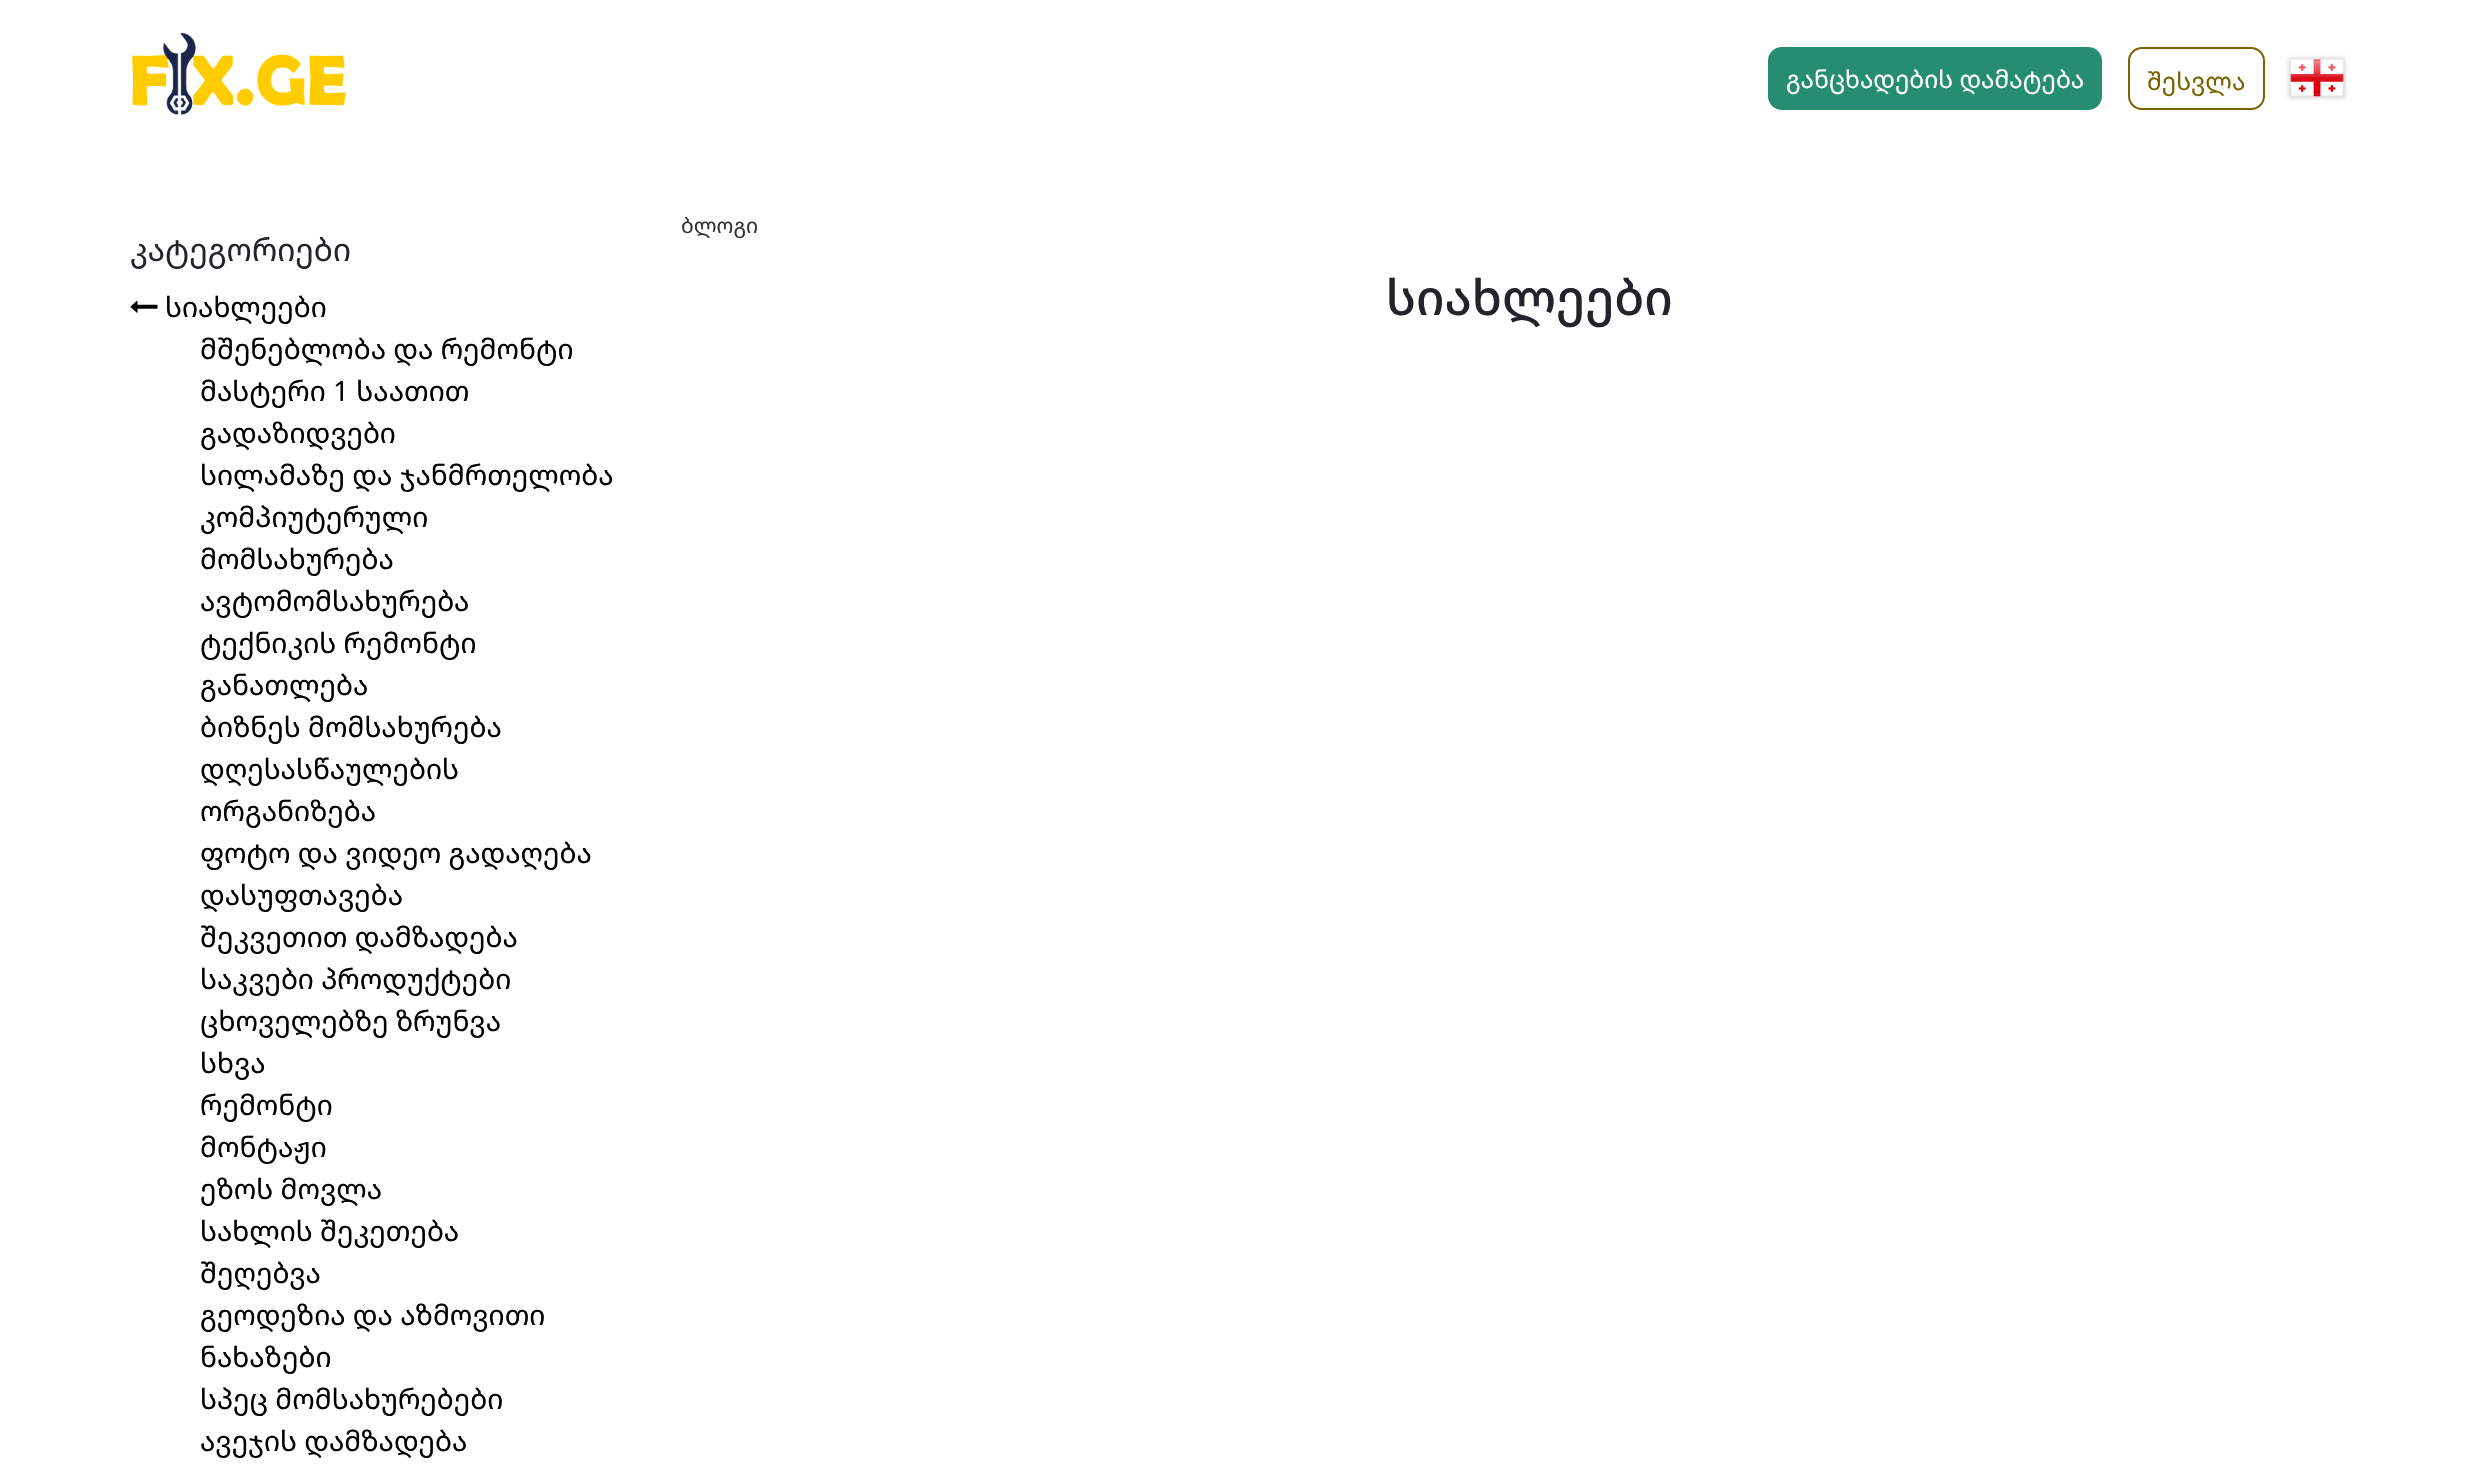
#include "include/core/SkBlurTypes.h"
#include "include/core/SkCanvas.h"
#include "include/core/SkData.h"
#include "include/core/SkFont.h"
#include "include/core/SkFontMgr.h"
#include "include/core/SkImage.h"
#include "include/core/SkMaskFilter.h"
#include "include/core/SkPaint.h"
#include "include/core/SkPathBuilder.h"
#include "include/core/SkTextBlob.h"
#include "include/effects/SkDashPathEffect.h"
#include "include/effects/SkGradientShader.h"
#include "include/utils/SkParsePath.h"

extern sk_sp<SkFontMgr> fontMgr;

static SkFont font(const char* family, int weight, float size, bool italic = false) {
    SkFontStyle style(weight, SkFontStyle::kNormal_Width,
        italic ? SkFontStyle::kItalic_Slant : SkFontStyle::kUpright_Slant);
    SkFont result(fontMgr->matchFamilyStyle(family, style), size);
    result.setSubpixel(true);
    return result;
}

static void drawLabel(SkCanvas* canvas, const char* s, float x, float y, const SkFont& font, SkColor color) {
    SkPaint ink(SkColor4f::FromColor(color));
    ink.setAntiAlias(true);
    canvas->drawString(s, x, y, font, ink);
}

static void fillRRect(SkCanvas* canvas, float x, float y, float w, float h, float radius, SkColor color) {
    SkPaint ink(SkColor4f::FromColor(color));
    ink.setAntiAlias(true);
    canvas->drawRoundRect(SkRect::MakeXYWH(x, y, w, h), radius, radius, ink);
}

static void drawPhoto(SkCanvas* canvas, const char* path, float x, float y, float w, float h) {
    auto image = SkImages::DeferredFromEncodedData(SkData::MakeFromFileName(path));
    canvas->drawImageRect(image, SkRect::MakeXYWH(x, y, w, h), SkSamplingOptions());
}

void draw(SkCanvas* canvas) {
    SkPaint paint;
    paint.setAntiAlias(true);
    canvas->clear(0xFFFFFFFF);
    drawPhoto(canvas, "assets/img1.png", 131, 32, 215, 83);
    fillRRect(canvas, 1768, 47, 334, 63, 14, 0xFF268D73);
    SkFont font1 = font("Noto Sans Georgian", 400, 24.5f);
    drawLabel(canvas, "განცხადების დამატება", 1786, 88, font1, 0xFFFFFFFF);
    paint.setStroke(true);
    paint.setStrokeWidth(2);
    paint.setColor(0xFF7A6200);
    canvas->drawRoundRect(SkRect::MakeXYWH(2129, 48, 135, 61), 13, 13, paint);
    drawLabel(canvas, "შესვლა", 2147, 90, font1, 0xFF7A6200);
    paint.setStroke(false);
    paint.setColor(0xFFD4D4D4);
    paint.setMaskFilter(SkMaskFilter::MakeBlur(kNormal_SkBlurStyle, 2));
    canvas->drawRect(SkRect::MakeXYWH(2289, 58, 56, 40), paint);
    paint.setMaskFilter(nullptr);
    drawPhoto(canvas, "assets/img2.png", 2290, 59, 54, 38);
    SkFont font2 = font("Noto Sans Georgian", 400, 31.5f);
    drawLabel(canvas, "კატეგორიები", 130, 261, font2, 0xFF212529);
    drawPhoto(canvas, "assets/img3.png", 130, 300, 28, 13);
    SkFont font3 = font("Noto Sans Georgian", 400, 28);
    drawLabel(canvas, "სიახლეები", 165, 317, font3, 0xFF000000);
    drawLabel(canvas, "მშენებლობა და რემონტი", 200, 359, font3, 0xFF000000);
    drawLabel(canvas, "მასტერი 1 საათით", 200, 401, font3, 0xFF000000);
    drawLabel(canvas, "გადაზიდვები", 200, 443, font3, 0xFF000000);
    drawLabel(canvas, "სილამაზე და ჯანმრთელობა", 200, 485, font3, 0xFF000000);
    drawLabel(canvas, "კომპიუტერული", 200, 527, font3, 0xFF000000);
    drawLabel(canvas, "მომსახურება", 200, 569, font3, 0xFF000000);
    drawLabel(canvas, "ავტომომსახურება", 200, 611, font3, 0xFF000000);
    drawLabel(canvas, "ტექნიკის რემონტი", 200, 653, font3, 0xFF000000);
    drawLabel(canvas, "განათლება", 200, 695, font3, 0xFF000000);
    drawLabel(canvas, "ბიზნეს მომსახურება", 200, 737, font3, 0xFF000000);
    drawLabel(canvas, "დღესასწაულების", 200, 779, font3, 0xFF000000);
    drawLabel(canvas, "ორგანიზება", 200, 821, font3, 0xFF000000);
    drawLabel(canvas, "ფოტო და ვიდეო გადაღება", 200, 863, font3, 0xFF000000);
    drawLabel(canvas, "დასუფთავება", 200, 905, font3, 0xFF000000);
    drawLabel(canvas, "შეკვეთით დამზადება", 200, 947, font3, 0xFF000000);
    drawLabel(canvas, "საკვები პროდუქტები", 200, 989, font3, 0xFF000000);
    drawLabel(canvas, "ცხოველებზე ზრუნვა", 200, 1031, font3, 0xFF000000);
    drawLabel(canvas, "სხვა", 200, 1073, font3, 0xFF000000);
    drawLabel(canvas, "რემონტი", 200, 1115, font3, 0xFF000000);
    drawLabel(canvas, "მონტაჟი", 200, 1157, font3, 0xFF000000);
    drawLabel(canvas, "ეზოს მოვლა", 200, 1199, font3, 0xFF000000);
    drawLabel(canvas, "სახლის შეკეთება", 200, 1241, font3, 0xFF000000);
    drawLabel(canvas, "შეღებვა", 200, 1283, font3, 0xFF000000);
    drawLabel(canvas, "გეოდეზია და აზმოვითი", 200, 1325, font3, 0xFF000000);
    drawLabel(canvas, "ნახაზები", 200, 1367, font3, 0xFF000000);
    drawLabel(canvas, "სპეც მომსახურებები", 200, 1409, font3, 0xFF000000);
    drawLabel(canvas, "ავეჯის დამზადება", 200, 1451, font3, 0xFF000000);
    SkFont font4 = font("Noto Sans Georgian", 400, 21);
    drawLabel(canvas, "ბლოგი", 681, 233, font4, 0xFF333333);
    SkFont font5 = font("Noto Sans Georgian", 500, 49);
    drawLabel(canvas, "სიახლეები", 1386, 315, font5, 0xFF212529);
}
